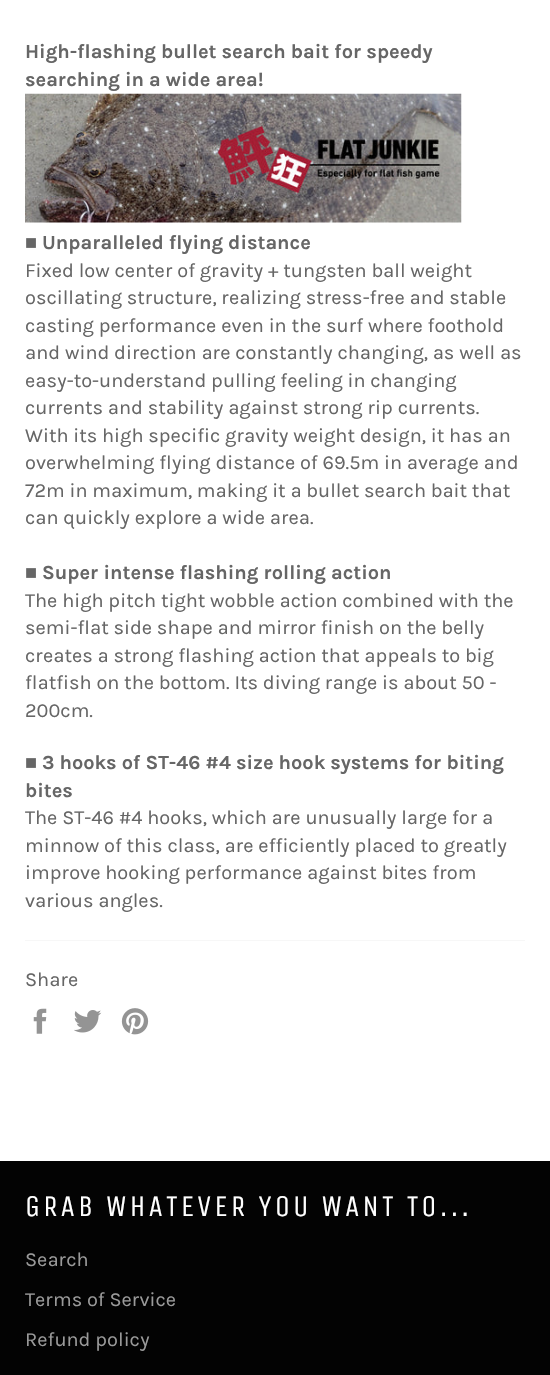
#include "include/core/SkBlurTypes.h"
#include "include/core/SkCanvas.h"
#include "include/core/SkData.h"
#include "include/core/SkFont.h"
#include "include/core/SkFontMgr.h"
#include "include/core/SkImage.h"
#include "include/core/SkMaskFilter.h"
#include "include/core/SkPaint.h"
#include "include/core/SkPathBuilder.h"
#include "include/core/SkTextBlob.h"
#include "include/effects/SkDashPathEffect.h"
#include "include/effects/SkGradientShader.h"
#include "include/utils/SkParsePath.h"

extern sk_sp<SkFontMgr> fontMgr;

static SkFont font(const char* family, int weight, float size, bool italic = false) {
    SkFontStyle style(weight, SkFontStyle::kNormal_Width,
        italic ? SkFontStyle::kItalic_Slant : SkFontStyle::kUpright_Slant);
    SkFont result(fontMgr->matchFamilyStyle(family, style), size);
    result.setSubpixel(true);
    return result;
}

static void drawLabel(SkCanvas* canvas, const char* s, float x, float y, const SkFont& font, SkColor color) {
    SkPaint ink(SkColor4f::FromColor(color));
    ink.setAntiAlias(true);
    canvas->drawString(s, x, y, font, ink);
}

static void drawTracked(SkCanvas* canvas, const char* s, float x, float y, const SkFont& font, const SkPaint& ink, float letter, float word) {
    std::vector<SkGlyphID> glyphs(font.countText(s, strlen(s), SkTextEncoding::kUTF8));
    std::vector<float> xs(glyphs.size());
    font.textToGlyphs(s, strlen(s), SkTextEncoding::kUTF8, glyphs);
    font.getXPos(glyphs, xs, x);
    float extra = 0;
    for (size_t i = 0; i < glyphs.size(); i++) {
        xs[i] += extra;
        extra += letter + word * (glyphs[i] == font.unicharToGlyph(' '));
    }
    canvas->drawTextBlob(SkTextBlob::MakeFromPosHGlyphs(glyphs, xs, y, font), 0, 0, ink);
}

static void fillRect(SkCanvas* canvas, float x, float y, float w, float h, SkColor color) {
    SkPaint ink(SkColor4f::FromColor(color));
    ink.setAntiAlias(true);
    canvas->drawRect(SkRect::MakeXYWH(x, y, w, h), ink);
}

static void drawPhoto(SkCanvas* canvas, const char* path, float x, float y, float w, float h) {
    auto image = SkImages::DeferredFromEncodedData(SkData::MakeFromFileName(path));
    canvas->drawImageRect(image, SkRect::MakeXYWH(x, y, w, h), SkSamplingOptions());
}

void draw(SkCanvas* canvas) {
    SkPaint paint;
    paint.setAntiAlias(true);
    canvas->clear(0xFFFFFFFF);
    SkFont font1 = font("Karla", 700, 20);
    drawLabel(canvas, "High-flashing bullet search bait for speedy", 25, 58, font1, 0xFF666666);
    drawLabel(canvas, "searching in a wide area!", 25, 86, font1, 0xFF666666);
    drawPhoto(canvas, "assets/img1.png", 25, 93, 437, 130);
    SkFont font2 = font("Liberation Sans", 700, 20);
    drawLabel(canvas, "■", 25, 249, font2, 0xFF666666);
    drawLabel(canvas, "Unparalleled flying distance", 42, 249, font1, 0xFF666666);
    SkFont font3 = font("Karla", 400, 20);
    drawLabel(canvas, "Fixed low center of gravity + tungsten ball weight", 25, 277, font3, 0xFF666666);
    drawLabel(canvas, "oscillating structure, realizing stress-free and stable", 25, 304, font3, 0xFF666666);
    drawLabel(canvas, "casting performance even in the surf where foothold", 25, 332, font3, 0xFF666666);
    drawLabel(canvas, "and wind direction are constantly changing, as well as", 25, 359, font3, 0xFF666666);
    drawLabel(canvas, "easy-to-understand pulling feeling in changing", 25, 387, font3, 0xFF666666);
    drawLabel(canvas, "currents and stability against strong rip currents.", 25, 414, font3, 0xFF666666);
    drawLabel(canvas, "With its high specific gravity weight design, it has an", 25, 442, font3, 0xFF666666);
    drawLabel(canvas, "overwhelming flying distance of 69.5m in average and", 25, 469, font3, 0xFF666666);
    drawLabel(canvas, "72m in maximum, making it a bullet search bait that", 25, 497, font3, 0xFF666666);
    drawLabel(canvas, "can quickly explore a wide area.", 25, 524, font3, 0xFF666666);
    drawLabel(canvas, "■", 25, 579, font2, 0xFF666666);
    drawLabel(canvas, "Super intense flashing rolling action", 42, 579, font1, 0xFF666666);
    drawLabel(canvas, "The high pitch tight wobble action combined with the", 25, 607, font3, 0xFF666666);
    drawLabel(canvas, "semi-flat side shape and mirror finish on the belly", 25, 634, font3, 0xFF666666);
    drawLabel(canvas, "creates a strong flashing action that appeals to big", 25, 662, font3, 0xFF666666);
    drawLabel(canvas, "flatfish on the bottom. Its diving range is about 50 -", 25, 689, font3, 0xFF666666);
    drawLabel(canvas, "200cm.", 25, 717, font3, 0xFF666666);
    drawLabel(canvas, "■", 25, 769, font2, 0xFF666666);
    drawLabel(canvas, "3 hooks of ST-46 #4 size hook systems for biting", 42, 769, font1, 0xFF666666);
    drawLabel(canvas, "bites", 25, 797, font1, 0xFF666666);
    drawLabel(canvas, "The ST-46 #4 hooks, which are unusually large for a", 25, 824, font3, 0xFF666666);
    drawLabel(canvas, "minnow of this class, are efficiently placed to greatly", 25, 852, font3, 0xFF666666);
    drawLabel(canvas, "improve hooking performance against bites from", 25, 879, font3, 0xFF666666);
    drawLabel(canvas, "various angles.", 25, 907, font3, 0xFF666666);
    fillRect(canvas, 25, 940, 500, 1, 0xFFF7F7F7);
    drawLabel(canvas, "Share", 25, 986, font3, 0xFF666666);
    drawPhoto(canvas, "assets/img2.png", 33, 1008, 14, 26);
    drawPhoto(canvas, "assets/img3.png", 74, 1010, 28, 23);
    drawPhoto(canvas, "assets/img4.png", 121, 1008, 28, 27);
    fillRect(canvas, 0, 1161, 550, 214, 0xFF030303);
    SkFont font4 = font("Unica One", 400, 30);
    paint.setColor(0xFFFFFFFF);
    drawTracked(canvas, "GRAB WHATEVER YOU WANT TO...", 25, 1216, font4, paint, 3, 0);
    drawLabel(canvas, "Search", 25, 1266, font3, 0xFF9A9A9A);
    drawLabel(canvas, "Terms of Service", 25, 1306, font3, 0xFF9A9A9A);
    drawLabel(canvas, "Refund policy", 25, 1346, font3, 0xFF9A9A9A);
}
